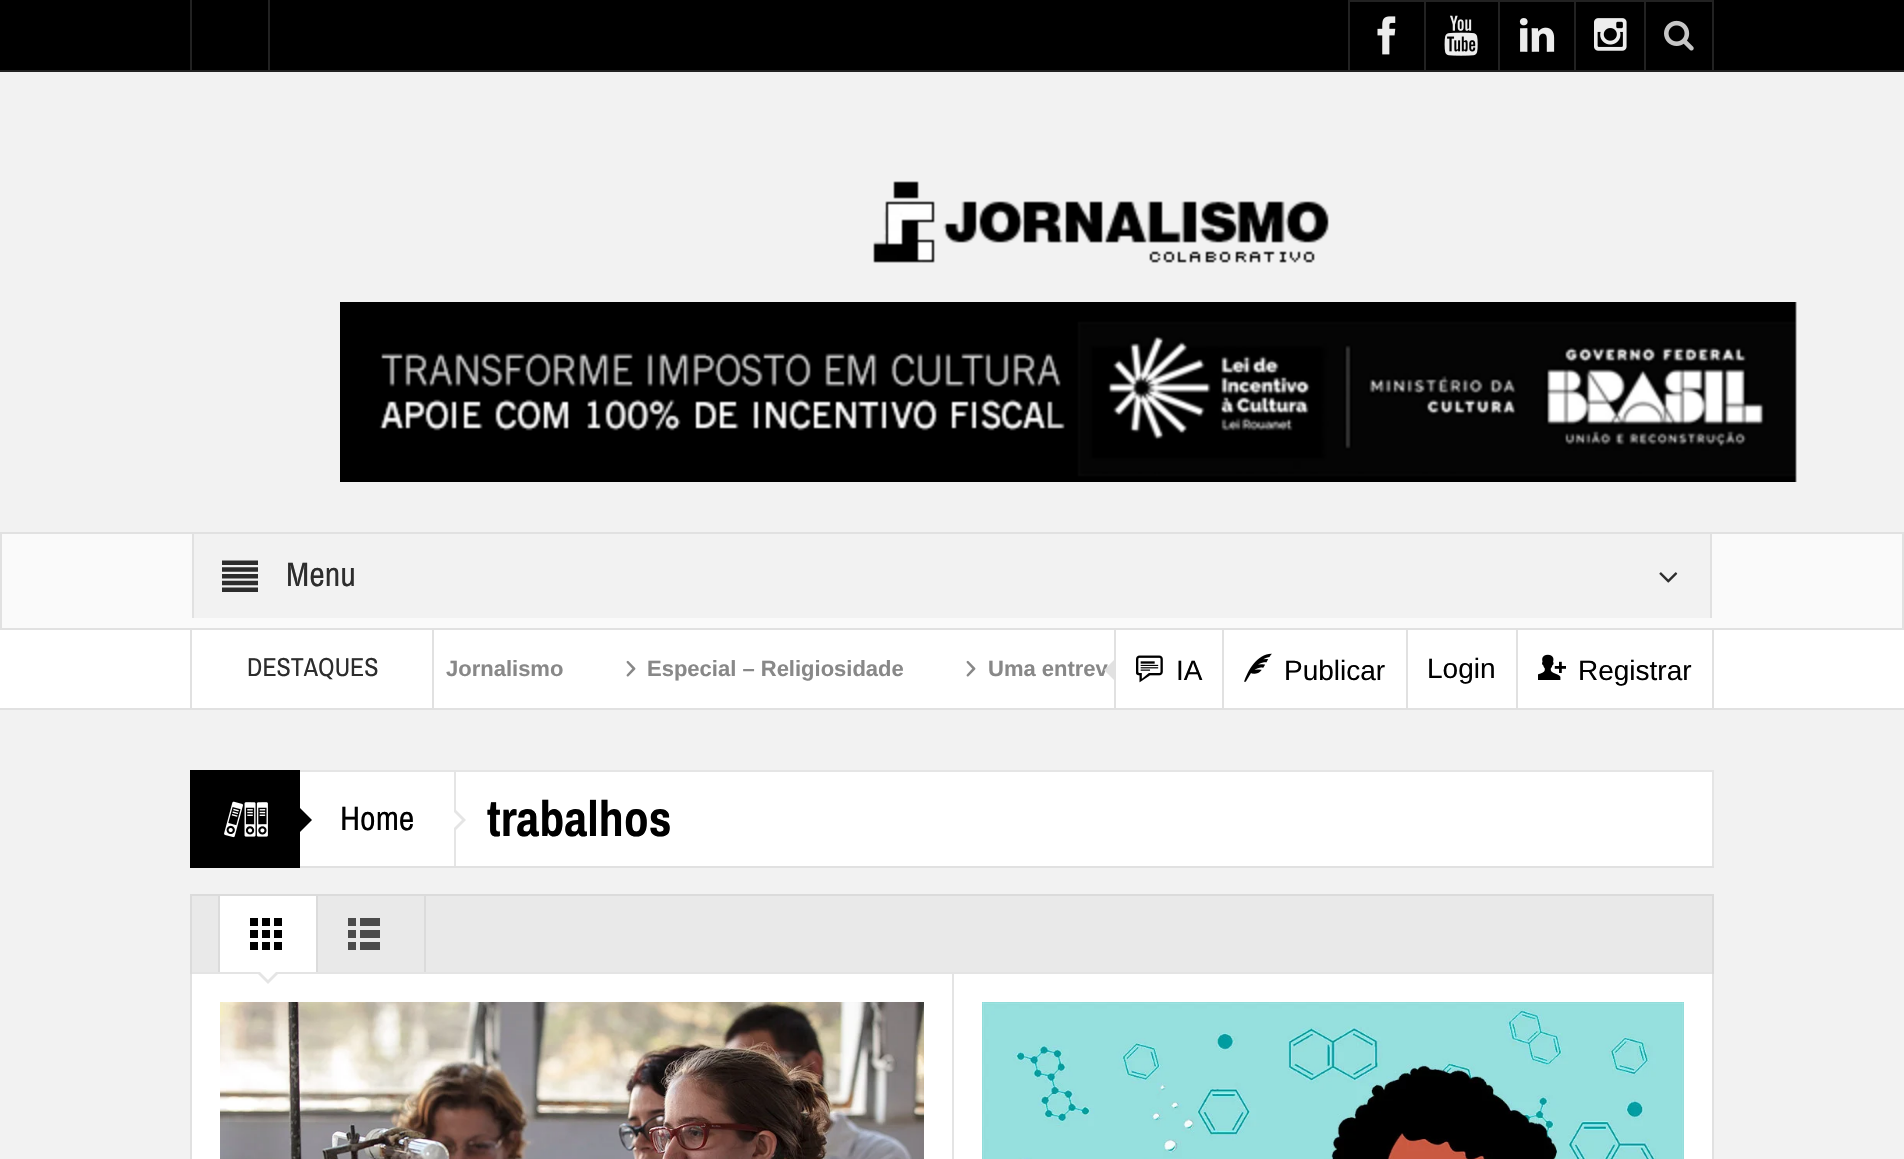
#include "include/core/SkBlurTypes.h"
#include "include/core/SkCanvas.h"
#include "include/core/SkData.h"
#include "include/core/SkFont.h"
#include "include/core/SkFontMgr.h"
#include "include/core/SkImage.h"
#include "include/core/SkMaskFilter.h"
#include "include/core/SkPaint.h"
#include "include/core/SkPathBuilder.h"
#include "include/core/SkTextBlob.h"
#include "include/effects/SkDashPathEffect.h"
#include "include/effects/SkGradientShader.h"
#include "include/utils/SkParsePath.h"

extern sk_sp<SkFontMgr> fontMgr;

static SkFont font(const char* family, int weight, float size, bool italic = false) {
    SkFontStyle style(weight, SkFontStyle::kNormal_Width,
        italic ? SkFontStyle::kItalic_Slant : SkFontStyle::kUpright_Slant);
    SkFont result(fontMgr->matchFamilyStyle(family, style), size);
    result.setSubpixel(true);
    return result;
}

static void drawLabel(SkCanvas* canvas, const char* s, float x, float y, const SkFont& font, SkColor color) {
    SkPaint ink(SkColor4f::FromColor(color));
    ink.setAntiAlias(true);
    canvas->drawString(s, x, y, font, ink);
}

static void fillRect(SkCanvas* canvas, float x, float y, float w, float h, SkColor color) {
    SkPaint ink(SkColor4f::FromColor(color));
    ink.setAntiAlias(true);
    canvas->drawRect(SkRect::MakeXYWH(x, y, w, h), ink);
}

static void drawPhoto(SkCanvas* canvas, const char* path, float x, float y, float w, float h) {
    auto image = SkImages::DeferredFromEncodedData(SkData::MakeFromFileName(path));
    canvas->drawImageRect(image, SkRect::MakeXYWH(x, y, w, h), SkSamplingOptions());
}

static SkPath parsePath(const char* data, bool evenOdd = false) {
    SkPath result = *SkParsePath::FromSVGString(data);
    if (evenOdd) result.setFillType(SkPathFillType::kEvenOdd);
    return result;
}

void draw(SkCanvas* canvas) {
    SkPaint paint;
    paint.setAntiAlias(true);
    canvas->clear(0xFFF2F2F2);
    fillRect(canvas, 0, 0, 1904, 70, 0xFF000000);
    fillRect(canvas, 0, 70, 1904, 2, 0xFF222222);
    fillRect(canvas, 268, 0, 2, 70, 0xFF222222);
    fillRect(canvas, 190, 0, 2, 70, 0xFF222222);
    fillRect(canvas, 1348, 0, 366, 2, 0xFF222222);
    fillRect(canvas, 1348, 0, 2, 70, 0xFF222222);
    drawPhoto(canvas, "assets/img1.png", 1377, 16, 19, 39);
    fillRect(canvas, 1424, 0, 2, 70, 0xFF222222);
    drawPhoto(canvas, "assets/img2.png", 1444, 15, 34, 41);
    fillRect(canvas, 1498, 0, 2, 70, 0xFF222222);
    drawPhoto(canvas, "assets/img3.png", 1519, 18, 36, 34);
    fillRect(canvas, 1574, 0, 2, 70, 0xFF222222);
    drawPhoto(canvas, "assets/img4.png", 1594, 18, 33, 33);
    fillRect(canvas, 1712, 0, 2, 70, 0xFF222222);
    fillRect(canvas, 1644, 0, 2, 70, 0xFF222222);
    drawPhoto(canvas, "assets/img5.png", 1664, 20, 30, 31);
    drawPhoto(canvas, "assets/img6.png", 873, 181, 456, 82);
    drawPhoto(canvas, "assets/img7.png", 340, 302, 1457, 180);
    paint.setColor(0xFFFAFAFA);
    canvas->drawRect(SkRect::MakeXYWH(1, 533, 1902, 96), paint);
    paint.setStroke(true);
    paint.setStrokeWidth(2);
    paint.setColor(0xFFE1E1E1);
    canvas->drawRect(SkRect::MakeXYWH(1, 533, 1902, 96), paint);
    fillRect(canvas, 194, 534, 1516, 84, 0xFFF2F2F2);
    fillRect(canvas, 1710, 534, 2, 84, 0xFFE1E1E1);
    fillRect(canvas, 192, 534, 2, 84, 0xFFE1E1E1);
    drawPhoto(canvas, "assets/img8.png", 222, 560, 36, 32);
    SkFont font1 = font("Archivo Narrow", 400, 34);
    drawLabel(canvas, "Menu", 286, 586, font1, 0xFF2D2D2D);
    drawPhoto(canvas, "assets/img9.png", 1659, 572, 19, 11);
    fillRect(canvas, 0, 630, 1904, 78, 0xFFFFFFFF);
    fillRect(canvas, 0, 708, 1904, 2, 0xFFE1E1E1);
    fillRect(canvas, 432, 630, 2, 78, 0xFFE1E1E1);
    fillRect(canvas, 190, 630, 2, 78, 0xFFE1E1E1);
    SkFont font2 = font("Archivo Narrow", 400, 26);
    drawLabel(canvas, "DESTAQUES", 247, 676, font2, 0xFF2D2D2D);
    fillRect(canvas, 1712, 630, 2, 78, 0xFFE1E1E1);
    SkFont font3 = font("Liberation Sans", 700, 22);
    drawLabel(canvas, "Jornalismo", 446, 676, font3, 0xFF888888);
    drawPhoto(canvas, "assets/img10.png", 626, 660, 10, 17);
    drawLabel(canvas, "Especial – Religiosidade", 647, 676, font3, 0xFF888888);
    drawPhoto(canvas, "assets/img10.png", 966, 660, 10, 17);
    drawLabel(canvas, "Uma entrev", 988, 676, font3, 0xFF888888);
    fillRect(canvas, 1114, 630, 2, 78, 0xFFE1E1E1);
    paint.setStroke(false);
    canvas->drawPath(parsePath("M1116 658V682L1104 670Z"), paint);
    fillRect(canvas, 1222, 630, 2, 78, 0xFFE1E1E1);
    drawPhoto(canvas, "assets/img11.png", 1136, 655, 27, 28);
    SkFont font4 = font("Liberation Sans", 400, 28);
    drawLabel(canvas, "IA", 1176, 680, font4, 0xFF000000);
    fillRect(canvas, 1406, 630, 2, 78, 0xFFE1E1E1);
    drawPhoto(canvas, "assets/img12.png", 1244, 653, 28, 29);
    drawLabel(canvas, "Publicar", 1284, 680, font4, 0xFF000000);
    fillRect(canvas, 1516, 630, 2, 78, 0xFFE1E1E1);
    drawLabel(canvas, "Login", 1427, 678, font4, 0xFF000000);
    drawPhoto(canvas, "assets/img13.png", 1538, 654, 28, 26);
    drawLabel(canvas, "Registrar", 1578, 680, font4, 0xFF000000);
    fillRect(canvas, 300, 772, 1412, 94, 0xFFFFFFFF);
    fillRect(canvas, 300, 770, 1414, 2, 0xFFE5E5E5);
    fillRect(canvas, 1712, 770, 2, 98, 0xFFE5E5E5);
    fillRect(canvas, 300, 866, 1414, 2, 0xFFE1E1E1);
    fillRect(canvas, 190, 770, 110, 98, 0xFF000000);
    drawPhoto(canvas, "assets/img14.png", 224, 801, 44, 37);
    paint.setColor(0xFF000000);
    canvas->drawPath(parsePath("M300 832V808L312 820Z"), paint);
    fillRect(canvas, 454, 772, 2, 94, 0xFFE5E5E5);
    drawLabel(canvas, "Home", 340, 830, font1, 0xFF000000);
    paint.setColor(0xFFE5E5E5);
    canvas->drawPath(parsePath("M454 832V808L466 820Z"), paint);
    paint.setColor(0xFFFFFFFF);
    canvas->drawPath(parsePath("M454 828V812L462 820Z"), paint);
    SkFont font5 = font("Archivo Narrow", 700, 50);
    drawLabel(canvas, "trabalhos", 487, 836, font5, 0xFF000000);
    fillRect(canvas, 192, 974, 1520, 185, 0xFFFFFFFF);
    paint.setStroke(true);
    paint.setColor(0xFFE1E1E1);
    canvas->drawRect(SkRect::MakeXYWH(191, 895, 1522, 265), paint);
    paint.setStroke(false);
    paint.setColor(0xFFE9E9E9);
    canvas->drawRect(SkRect::MakeXYWH(191, 895, 1522, 78), paint);
    paint.setStroke(true);
    paint.setColor(0xFFDBDBDB);
    canvas->drawRect(SkRect::MakeXYWH(191, 895, 1522, 78), paint);
    fillRect(canvas, 220, 896, 96, 76, 0xFFFFFFFF);
    fillRect(canvas, 218, 896, 2, 76, 0xFFDBDBDB);
    drawPhoto(canvas, "assets/img15.png", 250, 918, 32, 32);
    fillRect(canvas, 192, 972, 1520, 2, 0xFFE4E4E4);
    paint.setStroke(false);
    paint.setColor(0xFFE5E5E5);
    canvas->drawPath(parsePath("M256 972H280L268 984Z"), paint);
    paint.setColor(0xFFFFFFFF);
    canvas->drawPath(parsePath("M260 972H276L268 980Z"), paint);
    fillRect(canvas, 424, 896, 2, 76, 0xFFDBDBDB);
    fillRect(canvas, 316, 896, 2, 76, 0xFFDBDBDB);
    drawPhoto(canvas, "assets/img16.png", 348, 918, 32, 32);
    drawPhoto(canvas, "assets/img17.png", 220, 1002, 704, 157);
    fillRect(canvas, 952, 972, 2, 187, 0xFFE4E4E4);
    drawPhoto(canvas, "assets/img18.png", 982, 1002, 702, 157);
}
